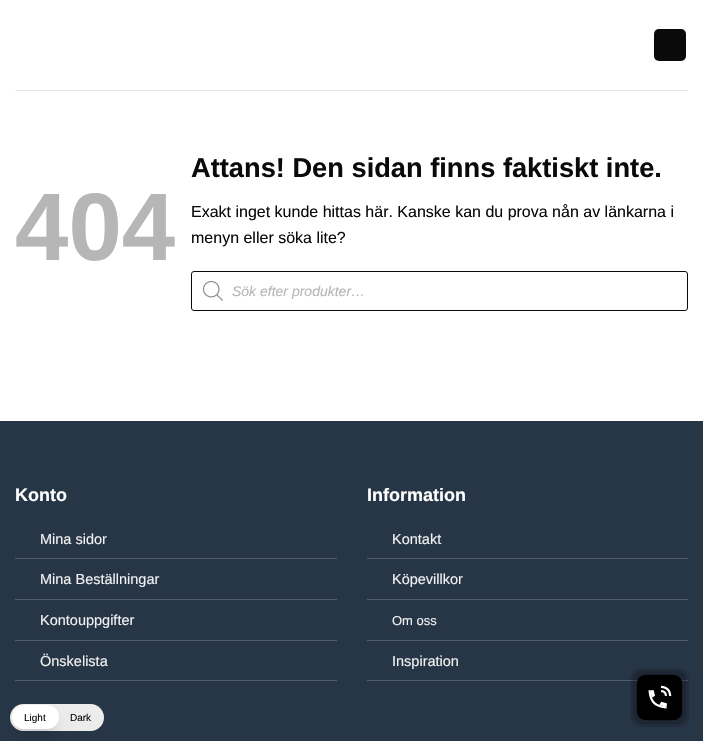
#include "include/core/SkBlurTypes.h"
#include "include/core/SkCanvas.h"
#include "include/core/SkData.h"
#include "include/core/SkFont.h"
#include "include/core/SkFontMgr.h"
#include "include/core/SkImage.h"
#include "include/core/SkMaskFilter.h"
#include "include/core/SkPaint.h"
#include "include/core/SkPathBuilder.h"
#include "include/core/SkTextBlob.h"
#include "include/effects/SkDashPathEffect.h"
#include "include/effects/SkGradientShader.h"
#include "include/utils/SkParsePath.h"

extern sk_sp<SkFontMgr> fontMgr;

static SkFont font(const char* family, int weight, float size, bool italic = false) {
    SkFontStyle style(weight, SkFontStyle::kNormal_Width,
        italic ? SkFontStyle::kItalic_Slant : SkFontStyle::kUpright_Slant);
    SkFont result(fontMgr->matchFamilyStyle(family, style), size);
    result.setSubpixel(true);
    return result;
}

static void drawLabel(SkCanvas* canvas, const char* s, float x, float y, const SkFont& font, SkColor color) {
    SkPaint ink(SkColor4f::FromColor(color));
    ink.setAntiAlias(true);
    canvas->drawString(s, x, y, font, ink);
}

static void fillRect(SkCanvas* canvas, float x, float y, float w, float h, SkColor color) {
    SkPaint ink(SkColor4f::FromColor(color));
    ink.setAntiAlias(true);
    canvas->drawRect(SkRect::MakeXYWH(x, y, w, h), ink);
}

static void fillRRect(SkCanvas* canvas, float x, float y, float w, float h, float radius, SkColor color) {
    SkPaint ink(SkColor4f::FromColor(color));
    ink.setAntiAlias(true);
    canvas->drawRoundRect(SkRect::MakeXYWH(x, y, w, h), radius, radius, ink);
}

static void drawPhoto(SkCanvas* canvas, const char* path, float x, float y, float w, float h) {
    auto image = SkImages::DeferredFromEncodedData(SkData::MakeFromFileName(path));
    canvas->drawImageRect(image, SkRect::MakeXYWH(x, y, w, h), SkSamplingOptions());
}

void draw(SkCanvas* canvas) {
    SkPaint paint;
    paint.setAntiAlias(true);
    canvas->clear(0xFFFFFFFF);
    fillRRect(canvas, 654, 29, 32, 32, 5, 0xFF0A0A0A);
    paint.setStroke(true);
    paint.setStrokeWidth(1);
    paint.setColor(0x0D000000);
    canvas->drawRect(SkRect::MakeXYWH(654.5f, 29.5f, 31, 31), paint);
    fillRect(canvas, 15, 90, 673, 1, 0xFFE7E7E7);
    SkFont font1 = font("Liberation Sans", 700, 96);
    drawLabel(canvas, "404", 15, 260, font1, 0xFFB6B6B6);
    SkFont font2 = font("Liberation Sans", 700, 27.25f);
    drawLabel(canvas, "Attans! Den sidan finns faktiskt inte.", 191, 177, font2, 0xFF0A0A0A);
    SkFont font3 = font("Liberation Sans", 400, 16);
    drawLabel(canvas, "Exakt inget kunde hittas här. Kanske kan du prova nån av länkarna i", 191, 217, font3, 0xFF0A0A0A);
    drawLabel(canvas, "menyn eller söka lite?", 191, 243, font3, 0xFF0A0A0A);
    paint.setColor(0xFF0A0A0A);
    canvas->drawRoundRect(SkRect::MakeXYWH(191.5f, 271.5f, 496, 39), 2.5f, 2.5f, paint);
    drawPhoto(canvas, "assets/img1.png", 203, 281, 20, 20);
    SkFont font4 = font("Liberation Sans", 400, 14, true);
    drawLabel(canvas, "Sök efter produkter…", 232, 296, font4, 0xFFB6B6B6);
    fillRect(canvas, 0, 421, 703, 320, 0xFF273647);
    SkFont font5 = font("Liberation Sans", 700, 18);
    drawLabel(canvas, "Konto", 15, 501, font5, 0xFFFFFFFF);
    fillRect(canvas, 15, 558, 322, 1, 0xFF525E6C);
    SkFont font6 = font("Liberation Sans", 400, 14.5f);
    drawLabel(canvas, "Mina sidor", 40, 544, font6, 0xFFF1F1F1);
    fillRect(canvas, 15, 599, 322, 1, 0xFF525E6C);
    drawLabel(canvas, "Mina Beställningar", 40, 584, font6, 0xFFF1F1F1);
    fillRect(canvas, 15, 640, 322, 1, 0xFF525E6C);
    drawLabel(canvas, "Kontouppgifter", 40, 625, font6, 0xFFF1F1F1);
    fillRect(canvas, 15, 680, 322, 1, 0xFF525E6C);
    drawLabel(canvas, "Önskelista", 40, 666, font6, 0xFFF1F1F1);
    drawLabel(canvas, "Information", 367, 501, font5, 0xFFFFFFFF);
    fillRect(canvas, 367, 558, 321, 1, 0xFF525E6C);
    drawLabel(canvas, "Kontakt", 392, 544, font6, 0xFFF1F1F1);
    fillRect(canvas, 367, 599, 321, 1, 0xFF525E6C);
    drawLabel(canvas, "Köpevillkor", 392, 584, font6, 0xFFF1F1F1);
    fillRect(canvas, 367, 640, 321, 1, 0xFF525E6C);
    SkFont font7 = font("Liberation Sans", 400, 13);
    drawLabel(canvas, "Om oss", 392, 625, font7, 0xFFF1F1F1);
    fillRect(canvas, 367, 680, 321, 1, 0xFF525E6C);
    drawLabel(canvas, "Inspiration", 392, 666, font6, 0xFFF1F1F1);
    fillRRect(canvas, 10, 704, 94, 27, 13.5f, 0xFFECECEC);
    paint.setStroke(false);
    paint.setColor(0x1A000000);
    paint.setMaskFilter(SkMaskFilter::MakeBlur(kNormal_SkBlurStyle, 3));
    canvas->drawRoundRect(SkRect::MakeXYWH(16, 713, 39, 16), 8, 8, paint);
    paint.setMaskFilter(nullptr);
    paint.setMaskFilter(SkMaskFilter::MakeBlur(kNormal_SkBlurStyle, 7.5f));
    canvas->drawRoundRect(SkRect::MakeXYWH(15, 718, 41, 18), 9, 9, paint);
    paint.setMaskFilter(nullptr);
    fillRRect(canvas, 12, 705, 47, 24, 12, 0xFFFFFFFF);
    SkFont font8 = font("Liberation Sans", 400, 10);
    drawLabel(canvas, "Light", 24, 721, font8, 0xFF0A0A0A);
    drawLabel(canvas, "Dark", 70, 721, font8, 0xFF0A0A0A);
    drawPhoto(canvas, "assets/img2.png", 630, 668, 59, 59);
}
